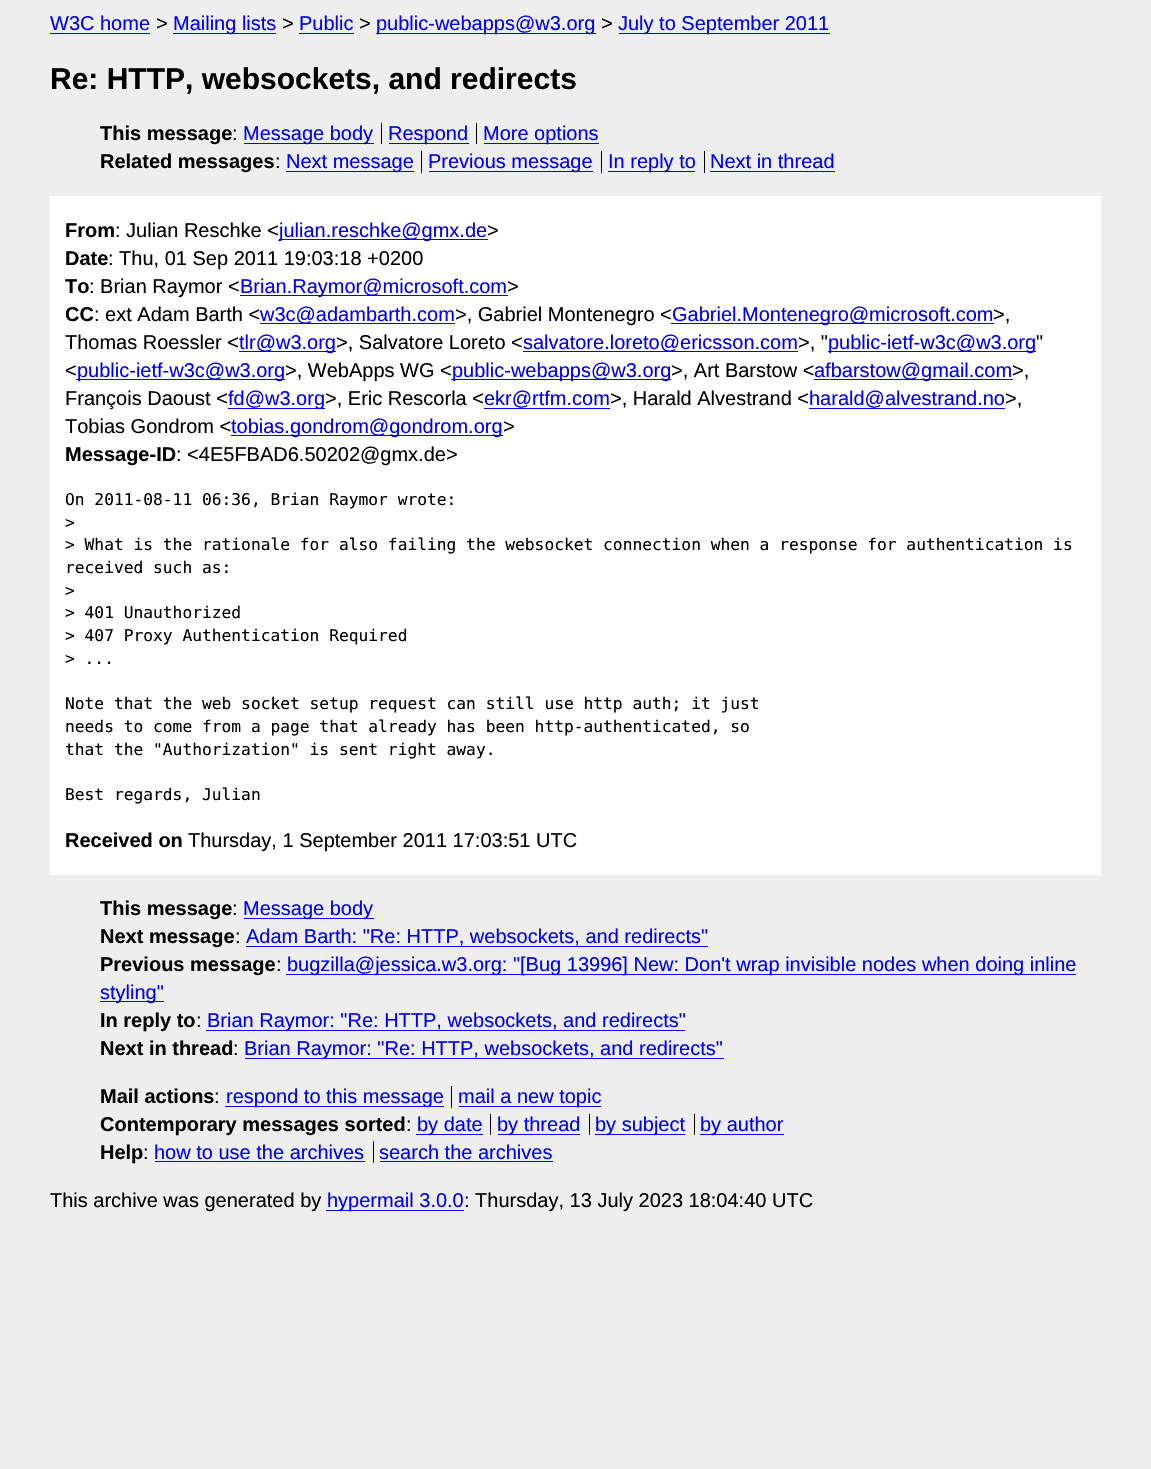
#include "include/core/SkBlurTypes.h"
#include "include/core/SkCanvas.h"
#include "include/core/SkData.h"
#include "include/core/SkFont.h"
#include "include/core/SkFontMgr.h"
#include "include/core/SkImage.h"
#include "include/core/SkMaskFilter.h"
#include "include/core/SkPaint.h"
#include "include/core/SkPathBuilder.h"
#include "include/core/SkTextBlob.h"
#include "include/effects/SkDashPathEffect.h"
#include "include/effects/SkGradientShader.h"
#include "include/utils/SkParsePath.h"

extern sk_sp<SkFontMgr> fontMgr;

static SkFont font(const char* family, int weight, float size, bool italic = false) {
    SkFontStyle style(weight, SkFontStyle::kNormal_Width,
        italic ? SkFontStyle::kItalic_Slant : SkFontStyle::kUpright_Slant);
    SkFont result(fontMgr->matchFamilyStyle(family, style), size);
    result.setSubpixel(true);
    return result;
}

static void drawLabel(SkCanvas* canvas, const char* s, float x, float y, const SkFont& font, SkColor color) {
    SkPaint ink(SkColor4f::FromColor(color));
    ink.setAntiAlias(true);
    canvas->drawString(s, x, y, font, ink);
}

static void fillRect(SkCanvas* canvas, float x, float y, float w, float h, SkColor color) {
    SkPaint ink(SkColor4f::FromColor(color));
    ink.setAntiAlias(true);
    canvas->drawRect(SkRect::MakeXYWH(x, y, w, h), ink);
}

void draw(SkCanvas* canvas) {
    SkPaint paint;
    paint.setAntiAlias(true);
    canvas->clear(0xFFEEEEEE);
    SkFont font1 = font("Liberation Sans", 400, 20);
    drawLabel(canvas, "W3C home", 50, 30, font1, 0xFF0000EE);
    fillRect(canvas, 50, 33, 100, 1, 0xFF0000EE);
    drawLabel(canvas, ">", 156, 30, font1, 0xFF000000);
    fillRect(canvas, 173, 33, 103, 1, 0xFF0000EE);
    drawLabel(canvas, "Mailing lists", 173, 30, font1, 0xFF0000EE);
    drawLabel(canvas, ">", 282, 30, font1, 0xFF000000);
    drawLabel(canvas, "Public", 299, 30, font1, 0xFF0000EE);
    fillRect(canvas, 299, 33, 55, 1, 0xFF0000EE);
    drawLabel(canvas, ">", 359, 30, font1, 0xFF000000);
    fillRect(canvas, 376, 33, 220, 1, 0xFF0000EE);
    drawLabel(canvas, "public-webapps@w3.org", 376, 30, font1, 0xFF0000EE);
    drawLabel(canvas, ">", 601, 30, font1, 0xFF000000);
    fillRect(canvas, 619, 33, 211, 1, 0xFF0000EE);
    drawLabel(canvas, "July to September 2011", 618, 30, font1, 0xFF0000EE);
    SkFont font2 = font("Liberation Sans", 700, 30);
    drawLabel(canvas, "Re: HTTP, websockets, and redirects", 50, 89, font2, 0xFF000000);
    SkFont font3 = font("Liberation Sans", 700, 20);
    drawLabel(canvas, "This message", 100, 140, font3, 0xFF000000);
    drawLabel(canvas, ":", 232, 140, font1, 0xFF000000);
    fillRect(canvas, 244, 143, 130, 1, 0xFF0000EE);
    drawLabel(canvas, "Message body", 243, 140, font1, 0xFF0000EE);
    fillRect(canvas, 381, 123, 1, 21, 0xFF000000);
    fillRect(canvas, 389, 143, 80, 1, 0xFF0000EE);
    drawLabel(canvas, "Respond", 388, 140, font1, 0xFF0000EE);
    fillRect(canvas, 484, 143, 115, 1, 0xFF0000EE);
    drawLabel(canvas, "More options", 483, 140, font1, 0xFF0000EE);
    fillRect(canvas, 476, 123, 1, 21, 0xFF000000);
    drawLabel(canvas, "Related messages", 100, 168, font3, 0xFF000000);
    drawLabel(canvas, ":", 275, 168, font1, 0xFF000000);
    fillRect(canvas, 286, 171, 128, 1, 0xFF0000EE);
    drawLabel(canvas, "Next message", 286, 168, font1, 0xFF0000EE);
    fillRect(canvas, 429, 171, 164, 1, 0xFF0000EE);
    drawLabel(canvas, "Previous message", 428, 168, font1, 0xFF0000EE);
    fillRect(canvas, 421, 151, 1, 22, 0xFF000000);
    fillRect(canvas, 608, 171, 87, 1, 0xFF0000EE);
    drawLabel(canvas, "In reply to", 608, 168, font1, 0xFF0000EE);
    fillRect(canvas, 601, 151, 1, 22, 0xFF000000);
    drawLabel(canvas, "Next in thread", 710, 168, font1, 0xFF0000EE);
    fillRect(canvas, 704, 151, 1, 22, 0xFF000000);
    fillRect(canvas, 710, 171, 125, 1, 0xFF0000EE);
    fillRect(canvas, 50, 196, 1051, 679, 0xFFFFFFFF);
    drawLabel(canvas, "From", 65, 237, font3, 0xFF000000);
    drawLabel(canvas, ": Julian Reschke <", 115, 237, font1, 0xFF000000);
    fillRect(canvas, 279, 239, 209, 1, 0xFF0000EE);
    drawLabel(canvas, "julian.reschke@gmx.de", 279, 237, font1, 0xFF0000EE);
    drawLabel(canvas, ">", 487, 237, font1, 0xFF000000);
    drawLabel(canvas, "Date", 65, 265, font3, 0xFF000000);
    drawLabel(canvas, ": Thu, 01 Sep 2011 19:03:18 +0200", 108, 265, font1, 0xFF000000);
    drawLabel(canvas, "To", 65, 293, font3, 0xFF000000);
    drawLabel(canvas, ": Brian Raymor <", 89, 293, font1, 0xFF000000);
    fillRect(canvas, 240, 295, 268, 1, 0xFF0000EE);
    drawLabel(canvas, "Brian.Raymor@microsoft.com", 240, 293, font1, 0xFF0000EE);
    drawLabel(canvas, ">", 507, 293, font1, 0xFF000000);
    drawLabel(canvas, "CC", 65, 321, font3, 0xFF000000);
    drawLabel(canvas, ": ext Adam Barth <", 94, 321, font1, 0xFF000000);
    fillRect(canvas, 260, 323, 195, 1, 0xFF0000EE);
    drawLabel(canvas, "w3c@adambarth.com", 260, 321, font1, 0xFF0000EE);
    drawLabel(canvas, ">, Gabriel Montenegro <", 455, 321, font1, 0xFF000000);
    fillRect(canvas, 671, 323, 323, 1, 0xFF0000EE);
    drawLabel(canvas, "Gabriel.Montenegro@microsoft.com", 672, 321, font1, 0xFF0000EE);
    drawLabel(canvas, ">,", 993, 321, font1, 0xFF000000);
    drawLabel(canvas, "Thomas Roessler <", 65, 349, font1, 0xFF000000);
    fillRect(canvas, 239, 351, 97, 1, 0xFF0000EE);
    drawLabel(canvas, "tlr@w3.org", 239, 349, font1, 0xFF0000EE);
    drawLabel(canvas, ">, Salvatore Loreto <", 336, 349, font1, 0xFF000000);
    fillRect(canvas, 523, 351, 275, 1, 0xFF0000EE);
    drawLabel(canvas, "salvatore.loreto@ericsson.com", 523, 349, font1, 0xFF0000EE);
    drawLabel(canvas, ">, \"", 798, 349, font1, 0xFF000000);
    fillRect(canvas, 828, 351, 208, 1, 0xFF0000EE);
    drawLabel(canvas, "public-ietf-w3c@w3.org", 828, 349, font1, 0xFF0000EE);
    drawLabel(canvas, "\"", 1036, 349, font1, 0xFF000000);
    drawLabel(canvas, "<", 65, 377, font1, 0xFF000000);
    fillRect(canvas, 76, 379, 209, 1, 0xFF0000EE);
    drawLabel(canvas, "public-ietf-w3c@w3.org", 77, 377, font1, 0xFF0000EE);
    drawLabel(canvas, ">, WebApps WG <", 285, 377, font1, 0xFF000000);
    fillRect(canvas, 451, 379, 220, 1, 0xFF0000EE);
    drawLabel(canvas, "public-webapps@w3.org", 452, 377, font1, 0xFF0000EE);
    drawLabel(canvas, ">, Art Barstow <", 671, 377, font1, 0xFF000000);
    fillRect(canvas, 814, 379, 199, 1, 0xFF0000EE);
    drawLabel(canvas, "afbarstow@gmail.com", 814, 377, font1, 0xFF0000EE);
    drawLabel(canvas, ">,", 1012, 377, font1, 0xFF000000);
    drawLabel(canvas, "François Daoust <", 65, 405, font1, 0xFF000000);
    fillRect(canvas, 228, 408, 97, 1, 0xFF0000EE);
    drawLabel(canvas, "fd@w3.org", 228, 405, font1, 0xFF0000EE);
    drawLabel(canvas, ">, Eric Rescorla <", 325, 405, font1, 0xFF000000);
    drawLabel(canvas, "ekr@rtfm.com", 484, 405, font1, 0xFF0000EE);
    fillRect(canvas, 484, 408, 126, 1, 0xFF0000EE);
    drawLabel(canvas, ">, Harald Alvestrand <", 610, 405, font1, 0xFF000000);
    drawLabel(canvas, "harald@alvestrand.no", 809, 405, font1, 0xFF0000EE);
    drawLabel(canvas, ">,", 1005, 405, font1, 0xFF000000);
    fillRect(canvas, 809, 408, 196, 1, 0xFF0000EE);
    drawLabel(canvas, "Tobias Gondrom <", 65, 433, font1, 0xFF000000);
    fillRect(canvas, 231, 435, 272, 1, 0xFF0000EE);
    drawLabel(canvas, "tobias.gondrom@gondrom.org", 231, 433, font1, 0xFF0000EE);
    drawLabel(canvas, ">", 503, 433, font1, 0xFF000000);
    drawLabel(canvas, "Message-ID", 65, 461, font3, 0xFF000000);
    drawLabel(canvas, ": <4E5FBAD6.50202@gmx.de>", 176, 461, font1, 0xFF000000);
    SkFont font4 = font("DejaVu Sans Mono", 400, 16.25f);
    drawLabel(canvas, "On 2011-08-11 06:36, Brian Raymor wrote:", 65, 505, font4, 0xFF000000);
    drawLabel(canvas, ">", 65, 528, font4, 0xFF000000);
    drawLabel(canvas, "> What is the rationale for also failing the websocket connection when a response for authentication is", 65, 550, font4, 0xFF000000);
    drawLabel(canvas, "received such as:", 65, 573, font4, 0xFF000000);
    drawLabel(canvas, ">", 65, 596, font4, 0xFF000000);
    drawLabel(canvas, "> 401 Unauthorized", 65, 618, font4, 0xFF000000);
    drawLabel(canvas, "> 407 Proxy Authentication Required", 65, 641, font4, 0xFF000000);
    drawLabel(canvas, "> ...", 65, 664, font4, 0xFF000000);
    drawLabel(canvas, "Note that the web socket setup request can still use http auth; it just", 65, 709, font4, 0xFF000000);
    drawLabel(canvas, "needs to come from a page that already has been http-authenticated, so", 65, 732, font4, 0xFF000000);
    drawLabel(canvas, "that the \"Authorization\" is sent right away.", 65, 755, font4, 0xFF000000);
    drawLabel(canvas, "Best regards, Julian", 65, 800, font4, 0xFF000000);
    drawLabel(canvas, "Received on", 65, 847, font3, 0xFF000000);
    drawLabel(canvas, "Thursday, 1 September 2011 17:03:51 UTC", 188, 847, font1, 0xFF000000);
    drawLabel(canvas, "This message", 100, 915, font3, 0xFF000000);
    drawLabel(canvas, ":", 232, 915, font1, 0xFF000000);
    fillRect(canvas, 244, 918, 130, 1, 0xFF0000EE);
    drawLabel(canvas, "Message body", 243, 915, font1, 0xFF0000EE);
    drawLabel(canvas, "Next message", 100, 943, font3, 0xFF000000);
    drawLabel(canvas, ":", 235, 943, font1, 0xFF000000);
    drawLabel(canvas, "Adam Barth: \"Re: HTTP, websockets, and redirects\"", 246, 943, font1, 0xFF0000EE);
    fillRect(canvas, 246, 946, 462, 1, 0xFF0000EE);
    drawLabel(canvas, "Previous message", 100, 971, font3, 0xFF000000);
    drawLabel(canvas, ":", 276, 971, font1, 0xFF000000);
    fillRect(canvas, 286, 974, 790, 1, 0xFF0000EE);
    drawLabel(canvas, "bugzilla@jessica.w3.org: \"[Bug 13996] New: Don't wrap invisible nodes when doing inline", 287, 971, font1, 0xFF0000EE);
    fillRect(canvas, 100, 1001, 64, 1, 0xFF0000EE);
    drawLabel(canvas, "styling\"", 100, 999, font1, 0xFF0000EE);
    drawLabel(canvas, "In reply to", 100, 1027, font3, 0xFF000000);
    drawLabel(canvas, ":", 196, 1027, font1, 0xFF000000);
    fillRect(canvas, 206, 1030, 479, 1, 0xFF0000EE);
    drawLabel(canvas, "Brian Raymor: \"Re: HTTP, websockets, and redirects\"", 207, 1027, font1, 0xFF0000EE);
    drawLabel(canvas, "Next in thread", 100, 1055, font3, 0xFF000000);
    drawLabel(canvas, ":", 233, 1055, font1, 0xFF000000);
    fillRect(canvas, 245, 1058, 479, 1, 0xFF0000EE);
    drawLabel(canvas, "Brian Raymor: \"Re: HTTP, websockets, and redirects\"", 244, 1055, font1, 0xFF0000EE);
    drawLabel(canvas, "Mail actions", 100, 1103, font3, 0xFF000000);
    drawLabel(canvas, ":", 214, 1103, font1, 0xFF000000);
    fillRect(canvas, 225, 1106, 219, 1, 0xFF0000EE);
    drawLabel(canvas, "respond to this message", 226, 1103, font1, 0xFF0000EE);
    fillRect(canvas, 459, 1106, 142, 1, 0xFF0000EE);
    drawLabel(canvas, "mail a new topic", 458, 1103, font1, 0xFF0000EE);
    fillRect(canvas, 451, 1086, 1, 22, 0xFF000000);
    drawLabel(canvas, "Contemporary messages sorted", 100, 1131, font3, 0xFF000000);
    drawLabel(canvas, ":", 406, 1131, font1, 0xFF000000);
    fillRect(canvas, 416, 1134, 67, 1, 0xFF0000EE);
    drawLabel(canvas, "by date", 417, 1131, font1, 0xFF0000EE);
    fillRect(canvas, 498, 1134, 82, 1, 0xFF0000EE);
    drawLabel(canvas, "by thread", 497, 1131, font1, 0xFF0000EE);
    fillRect(canvas, 490, 1114, 1, 21, 0xFF000000);
    fillRect(canvas, 595, 1134, 90, 1, 0xFF0000EE);
    drawLabel(canvas, "by subject", 595, 1131, font1, 0xFF0000EE);
    fillRect(canvas, 589, 1114, 1, 21, 0xFF000000);
    fillRect(canvas, 700, 1134, 84, 1, 0xFF0000EE);
    drawLabel(canvas, "by author", 700, 1131, font1, 0xFF0000EE);
    fillRect(canvas, 694, 1114, 1, 21, 0xFF000000);
    drawLabel(canvas, "Help", 100, 1159, font3, 0xFF000000);
    drawLabel(canvas, ":", 143, 1159, font1, 0xFF000000);
    drawLabel(canvas, "how to use the archives", 154, 1159, font1, 0xFF0000EE);
    fillRect(canvas, 155, 1161, 210, 1, 0xFF0000EE);
    drawLabel(canvas, "search the archives", 379, 1159, font1, 0xFF0000EE);
    fillRect(canvas, 373, 1141, 1, 22, 0xFF000000);
    fillRect(canvas, 380, 1161, 173, 1, 0xFF0000EE);
    drawLabel(canvas, "This archive was generated by", 50, 1207, font1, 0xFF000000);
    fillRect(canvas, 326, 1210, 138, 1, 0xFF0000EE);
    drawLabel(canvas, "hypermail 3.0.0", 327, 1207, font1, 0xFF0000EE);
    drawLabel(canvas, ": Thursday, 13 July 2023 18:04:40 UTC", 464, 1207, font1, 0xFF000000);
}
